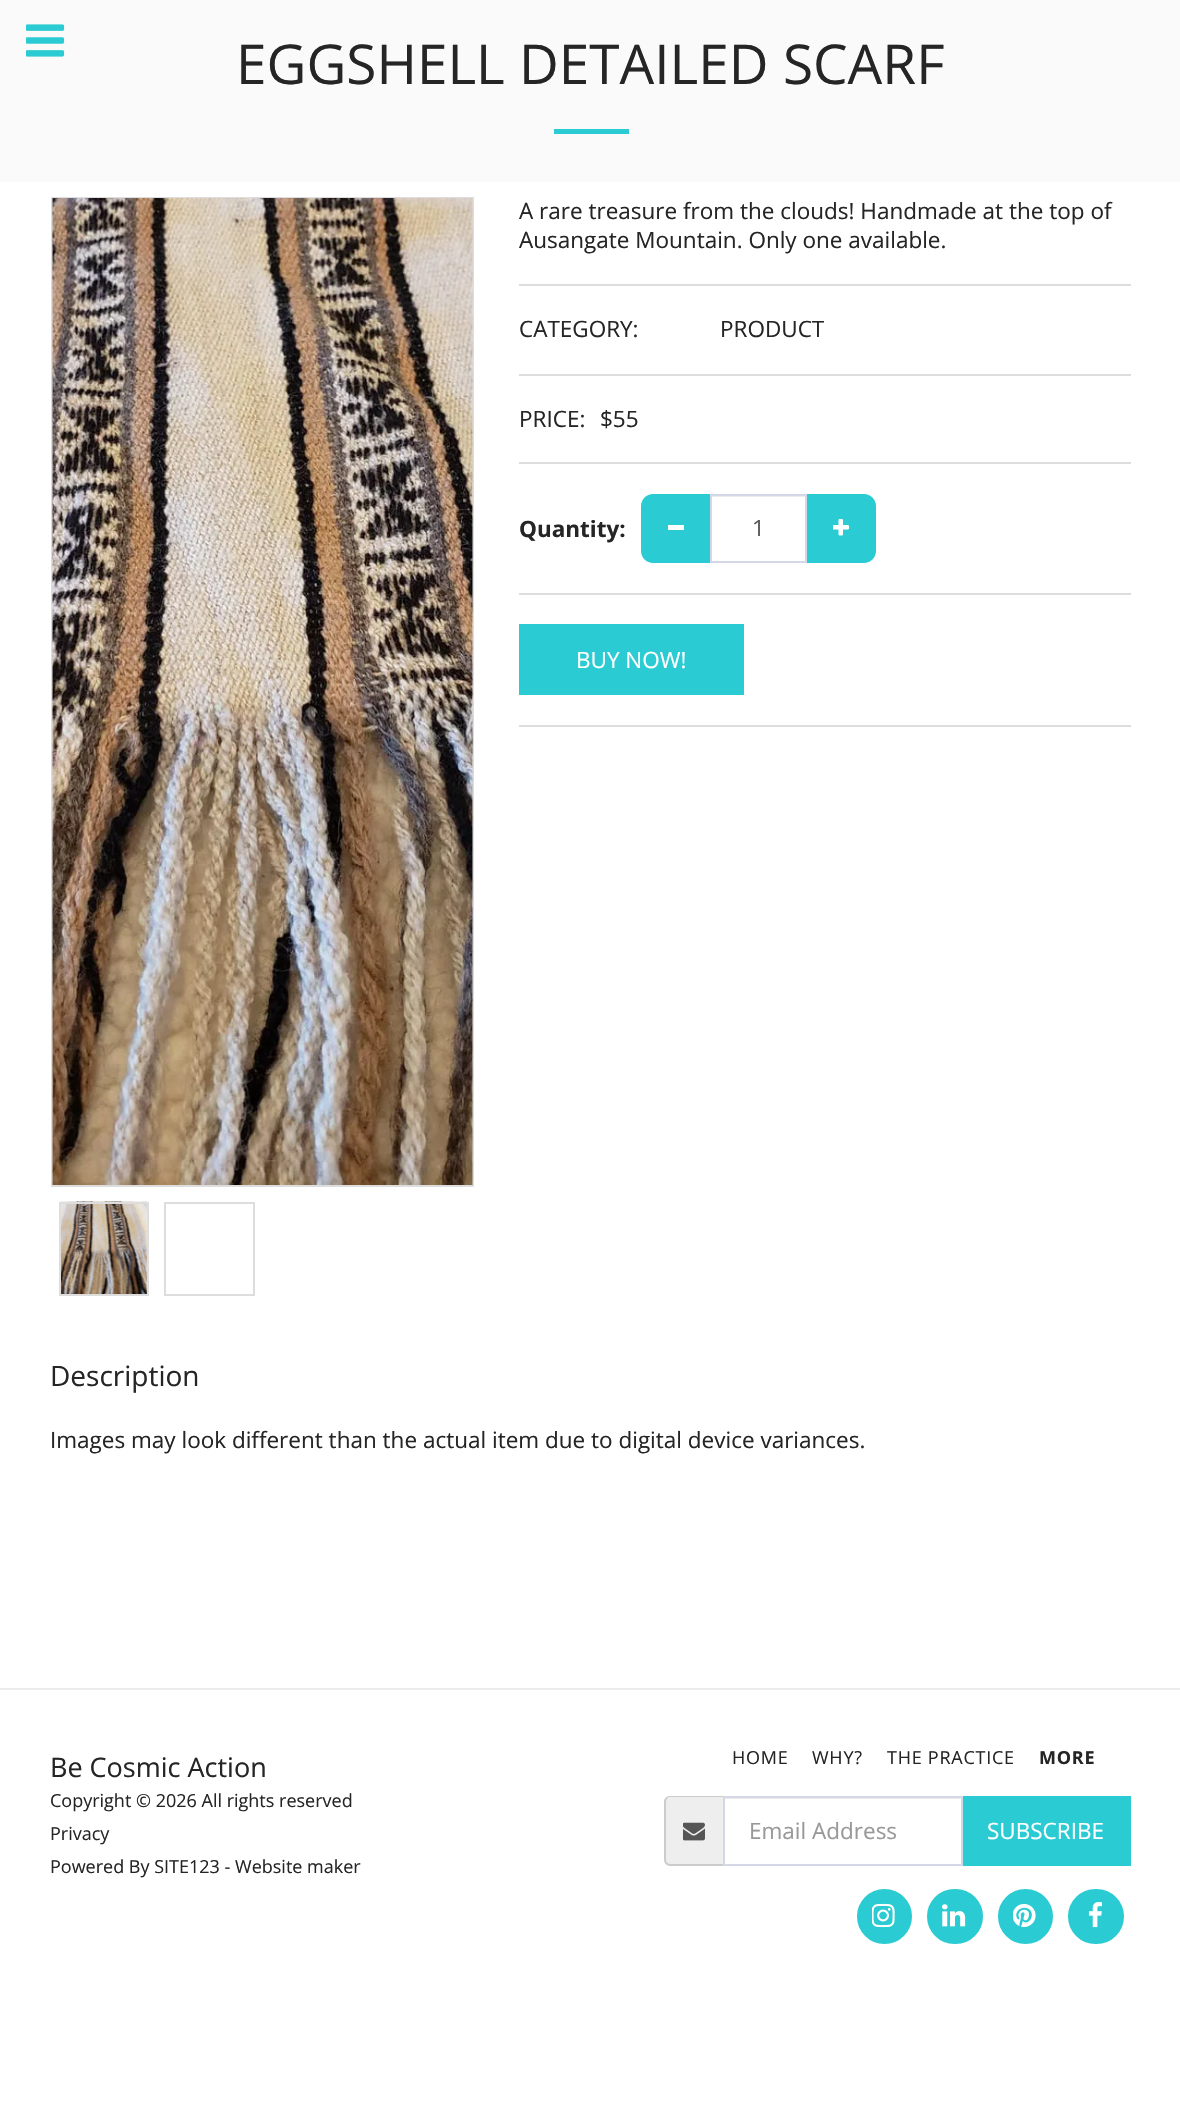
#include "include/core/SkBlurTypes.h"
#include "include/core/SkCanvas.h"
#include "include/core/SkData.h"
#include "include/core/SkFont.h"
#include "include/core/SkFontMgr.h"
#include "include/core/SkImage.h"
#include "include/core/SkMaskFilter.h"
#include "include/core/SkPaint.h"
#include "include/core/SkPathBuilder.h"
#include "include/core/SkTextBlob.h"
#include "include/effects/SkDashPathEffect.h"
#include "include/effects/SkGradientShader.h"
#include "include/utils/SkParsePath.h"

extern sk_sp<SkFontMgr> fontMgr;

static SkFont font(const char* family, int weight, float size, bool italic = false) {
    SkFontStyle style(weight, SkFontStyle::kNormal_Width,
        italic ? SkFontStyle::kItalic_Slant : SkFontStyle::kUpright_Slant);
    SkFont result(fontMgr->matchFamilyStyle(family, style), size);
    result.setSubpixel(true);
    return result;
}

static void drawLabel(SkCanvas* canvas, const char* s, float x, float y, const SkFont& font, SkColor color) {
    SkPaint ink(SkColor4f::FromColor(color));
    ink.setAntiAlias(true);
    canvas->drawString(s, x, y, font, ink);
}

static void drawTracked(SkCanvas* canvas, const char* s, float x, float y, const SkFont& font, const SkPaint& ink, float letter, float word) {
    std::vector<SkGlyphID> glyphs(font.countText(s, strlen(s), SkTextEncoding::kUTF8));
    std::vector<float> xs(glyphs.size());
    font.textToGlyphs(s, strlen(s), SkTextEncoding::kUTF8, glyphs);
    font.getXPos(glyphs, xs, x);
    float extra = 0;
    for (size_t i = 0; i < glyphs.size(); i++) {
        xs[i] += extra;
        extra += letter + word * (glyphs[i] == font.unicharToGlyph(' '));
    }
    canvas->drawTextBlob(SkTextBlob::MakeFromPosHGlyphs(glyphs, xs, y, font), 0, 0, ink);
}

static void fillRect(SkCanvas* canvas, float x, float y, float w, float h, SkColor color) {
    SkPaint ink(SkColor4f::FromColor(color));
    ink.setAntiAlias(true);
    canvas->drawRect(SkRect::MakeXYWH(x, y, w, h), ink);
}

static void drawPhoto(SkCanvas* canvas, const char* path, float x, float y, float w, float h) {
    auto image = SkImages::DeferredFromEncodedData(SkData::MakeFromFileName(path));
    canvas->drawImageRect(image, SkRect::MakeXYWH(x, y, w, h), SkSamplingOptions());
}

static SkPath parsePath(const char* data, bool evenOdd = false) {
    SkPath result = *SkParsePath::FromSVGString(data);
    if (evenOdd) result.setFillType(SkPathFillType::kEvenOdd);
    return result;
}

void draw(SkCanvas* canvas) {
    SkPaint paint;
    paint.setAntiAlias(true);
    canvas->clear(0xFFFFFFFF);
    fillRect(canvas, 0, 0, 1180, 182, 0xFFFAFAFA);
    drawPhoto(canvas, "assets/img1.png", 26, 24, 39, 33);
    SkFont font1 = font("Open Sans", 400, 54.9f);
    drawLabel(canvas, "EGGSHELL DETAILED SCARF", 236, 84, font1, 0xFF252525);
    fillRect(canvas, 554, 129, 75, 5, 0xFF2ACBD2);
    paint.setStroke(true);
    paint.setStrokeWidth(2);
    paint.setColor(0xFFDDDDDD);
    canvas->drawRect(SkRect::MakeXYWH(52, 198, 421, 988), paint);
    drawPhoto(canvas, "assets/img2.png", 52, 198, 421, 987);
    drawPhoto(canvas, "assets/img3.png", 59, 1201, 89, 93);
    canvas->drawRect(SkRect::MakeXYWH(60, 1203, 88, 92), paint);
    canvas->drawRect(SkRect::MakeXYWH(165, 1203, 89, 92), paint);
    SkFont font2 = font("Open Sans", 400, 22.5f);
    drawLabel(canvas, "A rare treasure from the clouds! Handmade at the top of", 519, 219, font2, 0xFF252525);
    drawLabel(canvas, "Ausangate Mountain. Only one available.", 519, 248, font2, 0xFF252525);
    fillRect(canvas, 519, 284, 612, 2, 0xFFDDDDDD);
    drawLabel(canvas, "CATEGORY:", 519, 337, font2, 0xFF252525);
    drawLabel(canvas, "PRODUCT", 720, 337, font2, 0xFF252525);
    fillRect(canvas, 519, 374, 612, 2, 0xFFDDDDDD);
    drawLabel(canvas, "PRICE:", 519, 427, font2, 0xFF252525);
    drawLabel(canvas, "$55", 600, 427, font2, 0xFF252525);
    fillRect(canvas, 519, 462, 612, 2, 0xFFDDDDDD);
    SkFont font3 = font("Open Sans", 700, 22.5f);
    drawLabel(canvas, "Quantity:", 519, 537, font3, 0xFF252525);
    paint.setStroke(false);
    paint.setColor(0xFF2ACBD2);
    canvas->drawPath(parsePath("M653 494H711V563H653C646.5 563 641 557.5 641 551V506C641 499.5 646.5 494 653 494Z"), paint);
    fillRect(canvas, 668, 525, 16, 5, 0xFFFFFFFF);
    fillRect(canvas, 711, 496, 95, 1, 0xFFECECEC);
    canvas->drawPath(parsePath("M806 494H864C870.5 494 876 499.5 876 506V551C876 557.5 870.5 563 864 563H806Z"), paint);
    paint.setStroke(true);
    paint.setColor(0xFFD4D7E5);
    canvas->drawRect(SkRect::MakeXYWH(711, 495, 95, 67), paint);
    drawLabel(canvas, "1", 752, 536, font2, 0xFF555555);
    drawPhoto(canvas, "assets/img4.png", 833, 519, 16, 17);
    fillRect(canvas, 519, 593, 612, 2, 0xFFDDDDDD);
    fillRect(canvas, 519, 624, 225, 71, 0xFF2ACBD2);
    drawLabel(canvas, "BUY NOW!", 576, 668, font2, 0xFFFFFFFF);
    fillRect(canvas, 519, 725, 612, 2, 0xFFDDDDDD);
    SkFont font4 = font("Open Sans", 400, 28);
    drawLabel(canvas, "Description", 50, 1386, font4, 0xFF252525);
    drawLabel(canvas, "Images may look different than the actual item due to digital device variances.", 50, 1448, font2, 0xFF252525);
    fillRect(canvas, 0, 1688, 1180, 2, 0xFFEBEBEB);
    SkFont font5 = font("Open Sans", 400, 27);
    drawLabel(canvas, "Be Cosmic Action", 50, 1777, font5, 0xFF252525);
    SkFont font6 = font("Open Sans", 400, 18);
    drawLabel(canvas, "Copyright © 2026 All rights reserved", 50, 1807, font6, 0xFF252525);
    drawLabel(canvas, "Privacy", 50, 1840, font6, 0xFF252525);
    drawLabel(canvas, "Powered By SITE123 - Website maker", 50, 1873, font6, 0xFF252525);
    paint.setStroke(false);
    paint.setColor(0xFF252525);
    drawTracked(canvas, "HOME", 732, 1764, font6, paint, 0.75f, 0);
    drawTracked(canvas, "WHY?", 812, 1764, font6, paint, 0.75f, 0);
    drawTracked(canvas, "THE PRACTICE", 887, 1764, font6, paint, 0.75f, 0);
    SkFont font7 = font("Open Sans", 700, 18);
    drawTracked(canvas, "MORE", 1039, 1764, font7, paint, 0.75f, 0);
    paint.setColor(0xFFEEEEEE);
    canvas->drawPath(parsePath("M671 1797H723V1865H671C668 1865 666 1863 666 1860V1802C666 1799 668 1797 671 1797Z"), paint);
    paint.setColor(0xFFCCCCCC);
    canvas->drawPath(parsePath("M670 1796H723V1866H670C667 1866 664 1863 664 1860V1802C664 1798 667 1796 670 1796ZM670 1797H723V1864H670C668 1864 666 1862 666 1860V1802C666 1799 668 1797 670 1797Z", true), paint);
    drawPhoto(canvas, "assets/img5.png", 683, 1822, 22, 19);
    fillRect(canvas, 725, 1798, 237, 1, 0xFFECECEC);
    paint.setStroke(true);
    paint.setColor(0xFFD4D7E5);
    canvas->drawRect(SkRect::MakeXYWH(724, 1797, 238, 68), paint);
    drawLabel(canvas, "Email Address", 749, 1839, font2, 0xFF999999);
    fillRect(canvas, 963, 1796, 168, 70, 0xFF2ACBD2);
    drawLabel(canvas, "SUBSCRIBE", 987, 1839, font2, 0xFFFFFFFF);
    paint.setStroke(false);
    paint.setColor(0xFF2ACBD2);
    canvas->drawCircle(884.5f, 1916.5f, 26.5f, paint);
    paint.setStroke(true);
    canvas->drawCircle(884.5f, 1916.5f, 26.5f, paint);
    drawPhoto(canvas, "assets/img6.png", 872, 1903, 23, 25);
    paint.setStroke(false);
    canvas->drawRoundRect(SkRect::MakeXYWH(928, 1890, 54, 53), 26.5f, 26.5f, paint);
    paint.setStroke(true);
    canvas->drawRoundRect(SkRect::MakeXYWH(928, 1890, 54, 53), 26.5f, 26.5f, paint);
    drawPhoto(canvas, "assets/img7.png", 942, 1904, 24, 23);
    paint.setStroke(false);
    canvas->drawCircle(1025.5f, 1916.5f, 26.5f, paint);
    paint.setStroke(true);
    canvas->drawCircle(1025.5f, 1916.5f, 26.5f, paint);
    drawPhoto(canvas, "assets/img8.png", 1013, 1903, 23, 25);
    paint.setStroke(false);
    canvas->drawRoundRect(SkRect::MakeXYWH(1069, 1890, 54, 53), 26.5f, 26.5f, paint);
    paint.setStroke(true);
    canvas->drawRoundRect(SkRect::MakeXYWH(1069, 1890, 54, 53), 26.5f, 26.5f, paint);
    drawPhoto(canvas, "assets/img9.png", 1088, 1902, 14, 26);
}
